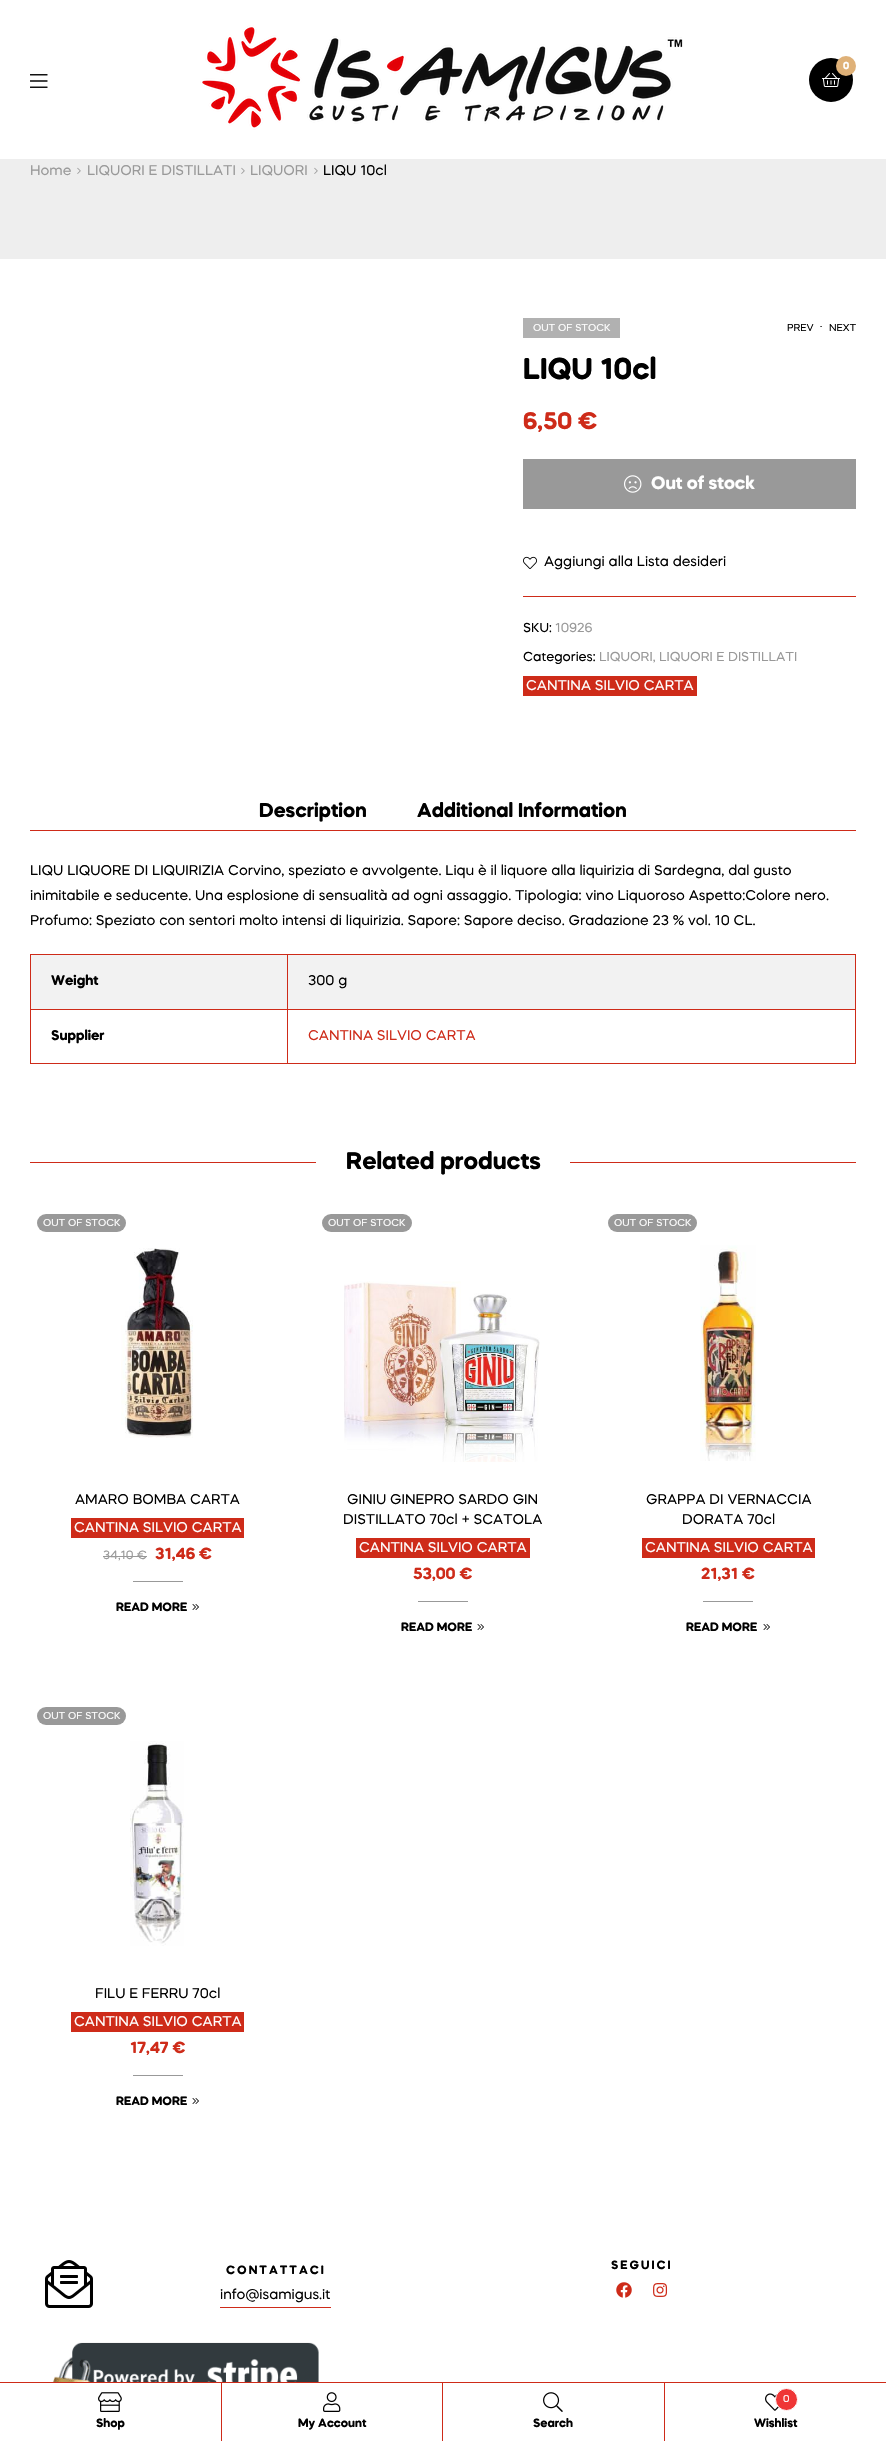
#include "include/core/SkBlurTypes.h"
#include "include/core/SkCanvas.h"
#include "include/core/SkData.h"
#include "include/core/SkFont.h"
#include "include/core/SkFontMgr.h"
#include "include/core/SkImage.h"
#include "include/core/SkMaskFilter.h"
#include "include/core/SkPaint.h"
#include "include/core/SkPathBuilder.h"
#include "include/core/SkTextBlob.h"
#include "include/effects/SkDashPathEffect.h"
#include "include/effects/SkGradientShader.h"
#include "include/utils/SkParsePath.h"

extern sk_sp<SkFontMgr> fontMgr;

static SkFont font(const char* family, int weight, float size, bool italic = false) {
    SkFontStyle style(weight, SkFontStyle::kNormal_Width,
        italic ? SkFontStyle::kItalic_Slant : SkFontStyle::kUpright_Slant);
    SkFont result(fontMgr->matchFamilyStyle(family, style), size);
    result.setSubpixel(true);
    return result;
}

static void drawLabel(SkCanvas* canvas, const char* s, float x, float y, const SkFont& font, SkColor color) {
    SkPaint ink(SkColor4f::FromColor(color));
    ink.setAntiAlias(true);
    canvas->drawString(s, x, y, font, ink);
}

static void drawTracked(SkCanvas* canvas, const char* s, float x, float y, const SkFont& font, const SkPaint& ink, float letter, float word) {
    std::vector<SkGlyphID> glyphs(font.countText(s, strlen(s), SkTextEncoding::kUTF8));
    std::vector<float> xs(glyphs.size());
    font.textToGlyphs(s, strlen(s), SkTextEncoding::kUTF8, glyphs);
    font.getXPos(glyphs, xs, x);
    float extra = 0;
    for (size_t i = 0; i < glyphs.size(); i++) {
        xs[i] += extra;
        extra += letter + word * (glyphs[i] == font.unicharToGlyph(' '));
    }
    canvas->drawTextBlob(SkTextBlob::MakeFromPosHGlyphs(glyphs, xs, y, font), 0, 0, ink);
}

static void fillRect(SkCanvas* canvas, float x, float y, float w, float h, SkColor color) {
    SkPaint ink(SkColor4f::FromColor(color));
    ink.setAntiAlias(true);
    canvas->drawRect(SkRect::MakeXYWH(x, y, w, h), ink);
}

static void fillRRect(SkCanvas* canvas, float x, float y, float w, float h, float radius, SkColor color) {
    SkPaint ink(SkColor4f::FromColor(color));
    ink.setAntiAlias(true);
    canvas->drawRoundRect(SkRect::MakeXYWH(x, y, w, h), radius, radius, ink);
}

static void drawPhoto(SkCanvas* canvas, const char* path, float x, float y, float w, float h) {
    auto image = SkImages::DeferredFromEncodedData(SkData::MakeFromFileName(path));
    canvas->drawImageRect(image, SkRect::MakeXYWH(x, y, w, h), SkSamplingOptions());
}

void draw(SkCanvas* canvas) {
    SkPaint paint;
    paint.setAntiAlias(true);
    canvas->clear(0xFFFFFFFF);
    drawPhoto(canvas, "assets/img1.png", 200, 25, 483, 105);
    paint.setColor(0xFF000000);
    canvas->drawCircle(831, 80, 22, paint);
    drawPhoto(canvas, "assets/img2.png", 822, 73, 18, 14);
    paint.setColor(0xFFDFB178);
    canvas->drawCircle(846, 66, 10, paint);
    SkFont font1 = font("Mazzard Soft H", 700, 10);
    drawLabel(canvas, "0", 843, 69, font1, 0xFFFFFFFF);
    drawPhoto(canvas, "assets/img3.png", 30, 74, 18, 14);
    fillRect(canvas, 0, 159, 886, 100, 0xFFEEEEEE);
    SkFont font2 = font("Mazzard Soft H", 400, 14);
    drawLabel(canvas, "Home", 30, 175, font2, 0xFF999999);
    drawPhoto(canvas, "assets/img4.png", 77, 167, 4, 7);
    drawLabel(canvas, "LIQUORI E DISTILLATI", 87, 175, font2, 0xFF999999);
    drawPhoto(canvas, "assets/img4.png", 241, 167, 4, 7);
    drawLabel(canvas, "LIQUORI", 250, 175, font2, 0xFF999999);
    drawPhoto(canvas, "assets/img4.png", 314, 167, 4, 7);
    drawLabel(canvas, "LIQU 10cl", 323, 175, font2, 0xFF000000);
    fillRect(canvas, 523, 318, 97, 20, 0xFFB1B1B1);
    SkFont font3 = font("Mazzard Soft H", 400, 10);
    drawLabel(canvas, "OUT OF STOCK", 533, 331, font3, 0xFFFFFFFF);
    drawLabel(canvas, "PREV", 787, 331, font3, 0xFF000000);
    drawLabel(canvas, ".", 820, 327, font3, 0xFF000000);
    drawLabel(canvas, "NEXT", 829, 331, font3, 0xFF000000);
    SkFont font4 = font("Mazzard Soft H", 700, 30);
    drawLabel(canvas, "LIQU 10cl", 523, 379, font4, 0xFF000000);
    SkFont font5 = font("Mazzard Soft H", 700, 24);
    drawLabel(canvas, "6,50 €", 523, 429, font5, 0xFFCE2B19);
    fillRect(canvas, 523, 459, 333, 50, 0xFF999999);
    drawPhoto(canvas, "assets/img5.png", 624, 475, 18, 18);
    SkFont font6 = font("Mazzard Soft H", 700, 18);
    drawLabel(canvas, "Out of stock", 651, 489, font6, 0xFFFFFFFF);
    drawPhoto(canvas, "assets/img6.png", 523, 556, 14, 13);
    drawLabel(canvas, "Aggiungi alla Lista desideri", 544, 566, font2, 0xFF000000);
    fillRect(canvas, 523, 596, 333, 1, 0xFFCE2B19);
    SkFont font7 = font("Mazzard Soft H", 400, 13);
    drawLabel(canvas, "SKU:", 523, 632, font7, 0xFF000000);
    drawLabel(canvas, "10926", 555, 632, font7, 0xFF999999);
    drawLabel(canvas, "Categories:", 523, 661, font7, 0xFF000000);
    drawLabel(canvas, "LIQUORI, LIQUORI E DISTILLATI", 599, 661, font7, 0xFF999999);
    fillRect(canvas, 523, 676, 174, 20, 0xFFCE2B19);
    drawLabel(canvas, "CANTINA SILVIO CARTA", 526, 690, font2, 0xFFFFFFFF);
    fillRect(canvas, 30, 830, 826, 1, 0xFFCE2B19);
    SkFont font8 = font("Mazzard Soft H", 700, 20);
    drawLabel(canvas, "Description", 259, 817, font8, 0xFF000000);
    drawLabel(canvas, "Additional Information", 417, 817, font8, 0xFF000000);
    drawLabel(canvas, "LIQU LIQUORE DI LIQUIRIZIA Corvino, speziato e avvolgente. Liqu è il liquore alla liquirizia di Sardegna, dal gusto", 30, 875, font2, 0xFF000000);
    drawLabel(canvas, "inimitabile e seducente. Una esplosione di sensualità ad ogni assaggio. Tipologia: vino Liquoroso Aspetto:Colore nero.", 30, 900, font2, 0xFF000000);
    drawLabel(canvas, "Profumo: Speziato con sentori molto intensi di liquirizia. Sapore: Sapore deciso. Gradazione 23 % vol. 10 CL.", 30, 925, font2, 0xFF000000);
    fillRect(canvas, 31, 955, 824, 54, 0xFFF2F2F2);
    fillRect(canvas, 287, 954, 569, 1, 0xFFCE2B19);
    fillRect(canvas, 287, 1009, 569, 1, 0xFFCE2B19);
    fillRect(canvas, 855, 1009, 1, 55, 0xFFCE2B19);
    fillRect(canvas, 287, 1063, 569, 1, 0xFFCE2B19);
    fillRect(canvas, 287, 1009, 1, 55, 0xFFCE2B19);
    fillRect(canvas, 30, 1009, 258, 1, 0xFFCE2B19);
    fillRect(canvas, 287, 954, 1, 56, 0xFFCE2B19);
    fillRect(canvas, 30, 954, 258, 1, 0xFFCE2B19);
    fillRect(canvas, 30, 1063, 258, 1, 0xFFCE2B19);
    fillRect(canvas, 30, 1009, 1, 55, 0xFFCE2B19);
    fillRect(canvas, 30, 954, 1, 56, 0xFFCE2B19);
    SkFont font9 = font("Mazzard Soft H", 700, 14);
    drawLabel(canvas, "Weight", 51, 985, font9, 0xFF000000);
    fillRect(canvas, 855, 954, 1, 56, 0xFFCE2B19);
    drawLabel(canvas, "300 g", 308, 985, font2, 0xFF000000);
    drawLabel(canvas, "Supplier", 51, 1040, font9, 0xFF000000);
    drawLabel(canvas, "CANTINA SILVIO CARTA", 308, 1040, font2, 0xFFCE2B19);
    fillRect(canvas, 30, 1162, 286, 1, 0xFFCE2B19);
    drawLabel(canvas, "Related products", 346, 1169, font5, 0xFF000000);
    fillRect(canvas, 570, 1162, 286, 1, 0xFFCE2B19);
    fillRRect(canvas, 37, 1214, 89, 18, 9, 0xFF999999);
    drawLabel(canvas, "OUT OF STOCK", 43, 1226, font3, 0xFFFFFFFF);
    drawPhoto(canvas, "assets/img7.png", 121, 1248, 72, 190);
    drawLabel(canvas, "AMARO BOMBA CARTA", 75, 1504, font2, 0xFF000000);
    fillRect(canvas, 71, 1518, 173, 20, 0xFFCE2B19);
    drawLabel(canvas, "CANTINA SILVIO CARTA", 74, 1532, font2, 0xFFFFFFFF);
    SkFont font10 = font("Mazzard Soft H", 400, 12);
    drawLabel(canvas, "34,10 €", 103, 1559, font10, 0xFF999999);
    fillRect(canvas, 103, 1556, 44, 1, 0xFF999999);
    SkFont font11 = font("Mazzard Soft H", 700, 16);
    drawLabel(canvas, "31,46 €", 155, 1559, font11, 0xFFCE2B19);
    fillRect(canvas, 133, 1581, 50, 1, 0xFF999999);
    SkFont font12 = font("Mazzard Soft H", 700, 12);
    drawLabel(canvas, "READ MORE", 116, 1611, font12, 0xFF000000);
    drawPhoto(canvas, "assets/img8.png", 192, 1604, 7, 6);
    fillRRect(canvas, 322, 1214, 90, 18, 9, 0xFF999999);
    drawLabel(canvas, "OUT OF STOCK", 328, 1226, font3, 0xFFFFFFFF);
    drawPhoto(canvas, "assets/img9.png", 344, 1281, 196, 181);
    drawLabel(canvas, "GINIU GINEPRO SARDO GIN", 347, 1504, font2, 0xFF000000);
    drawLabel(canvas, "DISTILLATO 70cl + SCATOLA", 343, 1524, font2, 0xFF000000);
    fillRect(canvas, 356, 1538, 174, 20, 0xFFCE2B19);
    drawLabel(canvas, "CANTINA SILVIO CARTA", 359, 1552, font2, 0xFFFFFFFF);
    drawLabel(canvas, "53,00 €", 413, 1579, font11, 0xFFCE2B19);
    fillRect(canvas, 418, 1601, 50, 1, 0xFF999999);
    drawLabel(canvas, "READ MORE", 401, 1631, font12, 0xFF000000);
    drawPhoto(canvas, "assets/img8.png", 477, 1624, 7, 6);
    fillRRect(canvas, 608, 1214, 89, 18, 9, 0xFF999999);
    drawLabel(canvas, "OUT OF STOCK", 614, 1226, font3, 0xFFFFFFFF);
    drawPhoto(canvas, "assets/img10.png", 700, 1245, 56, 216);
    drawLabel(canvas, "GRAPPA DI VERNACCIA", 646, 1504, font2, 0xFF000000);
    drawLabel(canvas, "DORATA 70cl", 682, 1524, font2, 0xFF000000);
    fillRect(canvas, 642, 1538, 173, 20, 0xFFCE2B19);
    drawLabel(canvas, "CANTINA SILVIO CARTA", 645, 1552, font2, 0xFFFFFFFF);
    drawLabel(canvas, "21,31 €", 701, 1579, font11, 0xFFCE2B19);
    fillRect(canvas, 703, 1601, 50, 1, 0xFF999999);
    drawLabel(canvas, "READ MORE", 686, 1631, font12, 0xFF000000);
    drawPhoto(canvas, "assets/img8.png", 763, 1624, 7, 6);
    fillRRect(canvas, 37, 1707, 89, 18, 9, 0xFF999999);
    drawLabel(canvas, "OUT OF STOCK", 43, 1719, font3, 0xFFFFFFFF);
    drawPhoto(canvas, "assets/img11.png", 130, 1741, 54, 205);
    drawLabel(canvas, "FILU E FERRU 70cl", 95, 1998, font2, 0xFF000000);
    fillRect(canvas, 71, 2012, 173, 20, 0xFFCE2B19);
    drawLabel(canvas, "CANTINA SILVIO CARTA", 74, 2026, font2, 0xFFFFFFFF);
    drawLabel(canvas, "17,47 €", 130, 2053, font11, 0xFFCE2B19);
    fillRect(canvas, 133, 2075, 50, 1, 0xFF999999);
    drawLabel(canvas, "READ MORE", 116, 2105, font12, 0xFF000000);
    drawPhoto(canvas, "assets/img8.png", 192, 2098, 7, 6);
    drawPhoto(canvas, "assets/img12.png", 45, 2260, 48, 48);
    paint.setColor(0xFF000000);
    drawTracked(canvas, "CONTATTACI", 226, 2274, font12, paint, 2, 0);
    drawLabel(canvas, "info@isamigus.it", 220, 2299, font2, 0xFF000000);
    fillRect(canvas, 220, 2307, 111, 1, 0xFFCE2B19);
    drawTracked(canvas, "SEGUICI", 611, 2269, font12, paint, 2, 0);
    drawPhoto(canvas, "assets/img13.png", 616, 2282, 16, 16);
    drawPhoto(canvas, "assets/img14.png", 653, 2283, 15, 14);
    drawPhoto(canvas, "assets/img15.png", 46, 2342, 287, 40);
    fillRect(canvas, 0, 2382, 886, 1, 0xFFCE2B19);
    fillRect(canvas, 221, 2382, 1, 59, 0xFFCE2B19);
    drawPhoto(canvas, "assets/img16.png", 98, 2392, 24, 20);
    drawLabel(canvas, "Shop", 96, 2427, font12, 0xFF000000);
    fillRect(canvas, 442, 2382, 1, 59, 0xFFCE2B19);
    drawPhoto(canvas, "assets/img17.png", 323, 2392, 18, 20);
    drawLabel(canvas, "My Account", 298, 2427, font12, 0xFF000000);
    fillRect(canvas, 664, 2382, 1, 59, 0xFFCE2B19);
    drawPhoto(canvas, "assets/img18.png", 543, 2392, 20, 20);
    drawLabel(canvas, "Search", 533, 2427, font12, 0xFF000000);
    drawPhoto(canvas, "assets/img19.png", 765, 2393, 14, 18);
    paint.setColor(0xFFEF3636);
    canvas->drawCircle(786.5f, 2399.5f, 11, paint);
    paint.setStroke(true);
    paint.setStrokeWidth(1);
    paint.setColor(0xFFFFFFFF);
    canvas->drawCircle(786.5f, 2399.5f, 11, paint);
    drawLabel(canvas, "0", 783, 2402, font3, 0xFFFFFFFF);
    drawLabel(canvas, "Wishlist", 754, 2427, font12, 0xFF000000);
}
